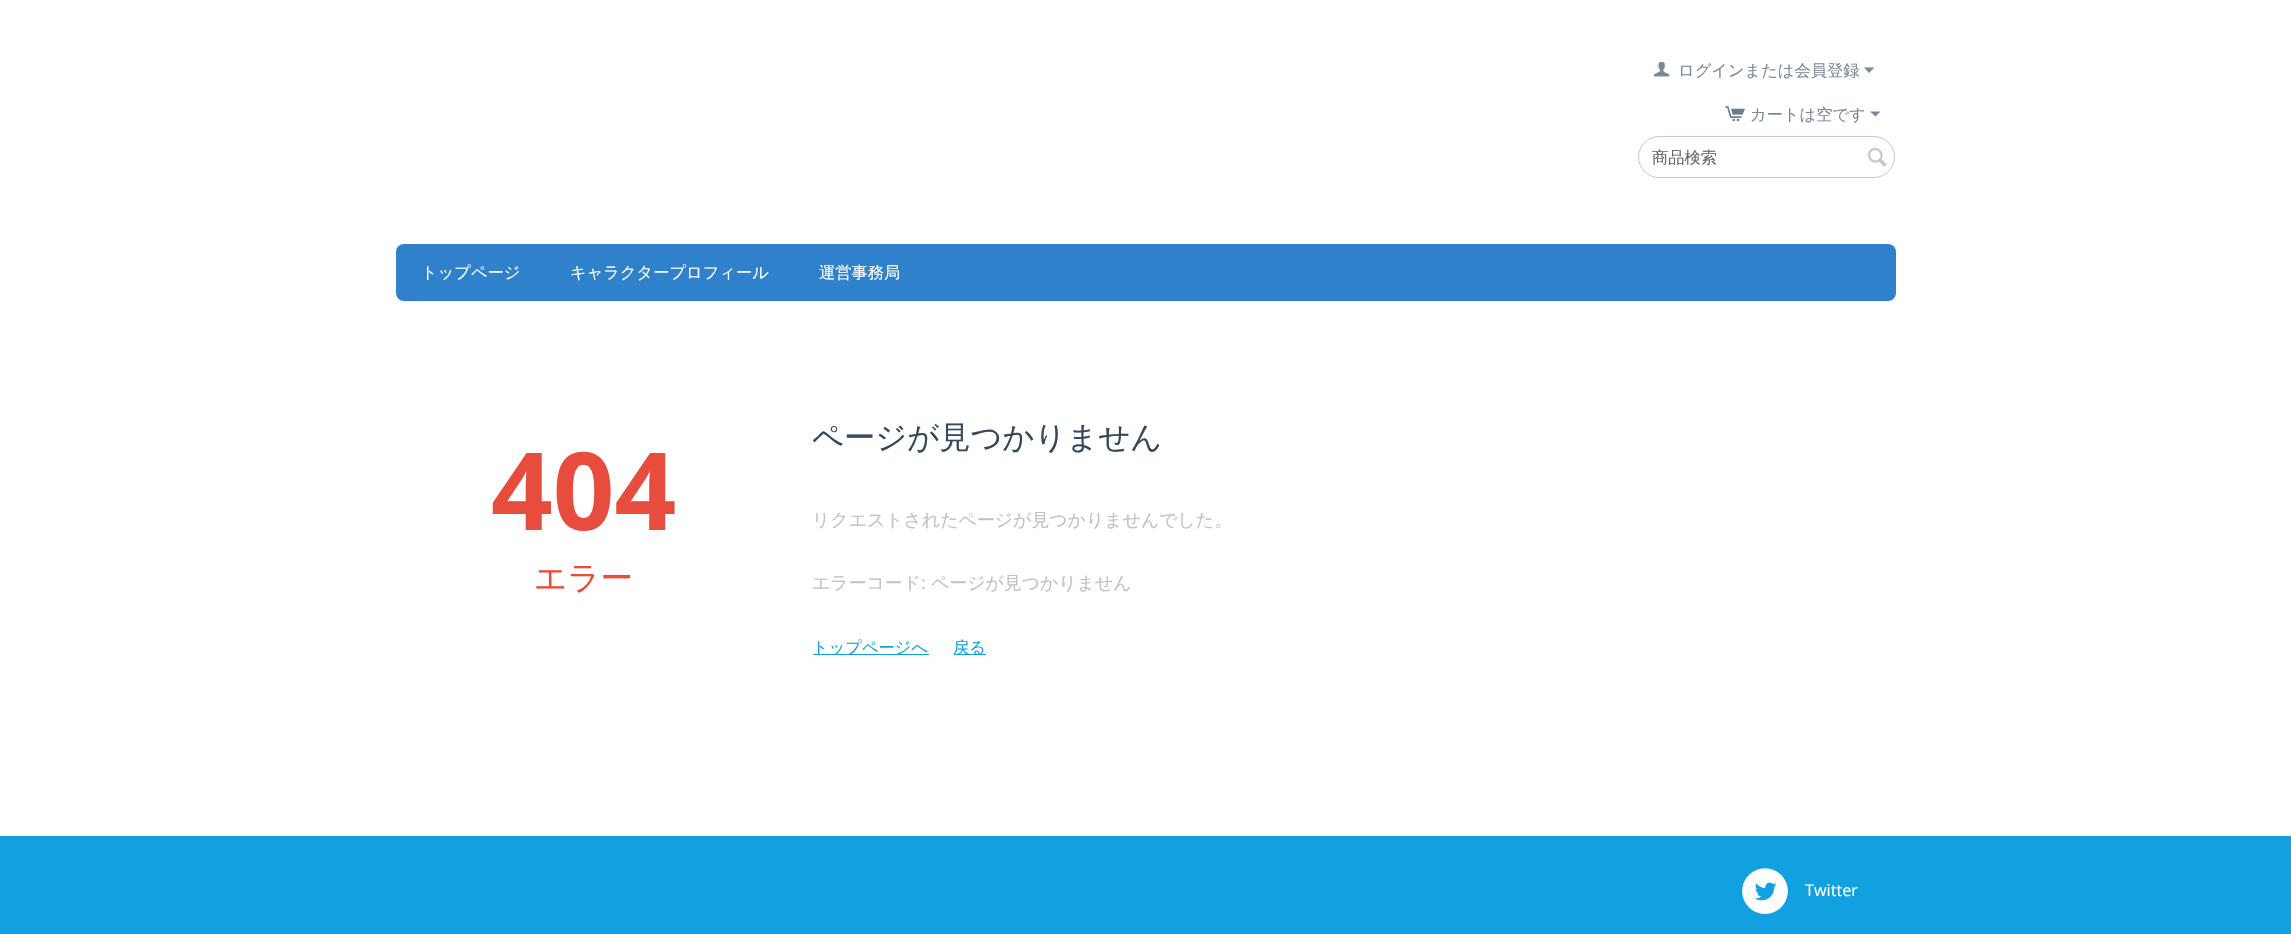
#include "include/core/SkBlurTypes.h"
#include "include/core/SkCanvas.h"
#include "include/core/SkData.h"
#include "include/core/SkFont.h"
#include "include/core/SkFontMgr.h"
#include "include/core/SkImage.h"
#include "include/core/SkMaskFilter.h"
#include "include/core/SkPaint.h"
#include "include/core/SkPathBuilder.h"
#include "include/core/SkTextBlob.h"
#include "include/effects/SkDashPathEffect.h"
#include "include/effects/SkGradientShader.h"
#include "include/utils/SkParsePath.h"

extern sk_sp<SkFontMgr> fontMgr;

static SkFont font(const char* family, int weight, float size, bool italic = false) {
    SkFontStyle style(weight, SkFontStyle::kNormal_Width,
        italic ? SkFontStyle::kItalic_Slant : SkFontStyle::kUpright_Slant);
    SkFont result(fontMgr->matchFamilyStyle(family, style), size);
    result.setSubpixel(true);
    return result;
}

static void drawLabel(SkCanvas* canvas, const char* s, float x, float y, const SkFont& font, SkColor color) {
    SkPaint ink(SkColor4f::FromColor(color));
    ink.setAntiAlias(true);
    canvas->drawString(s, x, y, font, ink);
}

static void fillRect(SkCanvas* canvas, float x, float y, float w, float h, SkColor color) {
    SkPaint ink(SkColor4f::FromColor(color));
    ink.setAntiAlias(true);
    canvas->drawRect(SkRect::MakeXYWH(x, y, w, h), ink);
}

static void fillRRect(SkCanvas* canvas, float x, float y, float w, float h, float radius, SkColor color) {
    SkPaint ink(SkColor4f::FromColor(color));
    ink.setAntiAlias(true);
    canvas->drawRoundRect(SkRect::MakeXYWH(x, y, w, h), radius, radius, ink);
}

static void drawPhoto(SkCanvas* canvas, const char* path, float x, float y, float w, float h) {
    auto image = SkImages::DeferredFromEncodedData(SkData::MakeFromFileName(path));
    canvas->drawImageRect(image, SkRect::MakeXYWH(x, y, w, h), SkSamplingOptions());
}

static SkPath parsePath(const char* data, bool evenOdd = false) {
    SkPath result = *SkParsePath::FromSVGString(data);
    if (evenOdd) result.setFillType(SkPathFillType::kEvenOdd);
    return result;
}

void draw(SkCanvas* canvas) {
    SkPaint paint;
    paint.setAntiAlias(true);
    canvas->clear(0xFFFFFFFF);
    drawPhoto(canvas, "assets/img1.png", 1654, 61, 16, 16);
    SkFont font1 = font("WenQuanYi Zen Hei", 500, 16.25f);
    drawLabel(canvas, "ログインまたは会員登録", 1678, 76, font1, 0xFF7A8998);
    paint.setColor(0xFF7A8998);
    canvas->drawPath(parsePath("M1869 73L1864 67.5H1874.5Z"), paint);
    drawPhoto(canvas, "assets/img2.png", 1725, 106, 20, 16);
    drawLabel(canvas, "カートは空です", 1750, 120, font1, 0xFF7A8998);
    canvas->drawPath(parsePath("M1875.5 116.5L1870 111.5H1880.5Z"), paint);
    paint.setStroke(true);
    paint.setStrokeWidth(1);
    paint.setColor(0xFFC2C9D0);
    canvas->drawRoundRect(SkRect::MakeXYWH(1638.5f, 136.5f, 256, 41), 20.5f, 20.5f, paint);
    drawLabel(canvas, "商品検索", 1652, 163, font1, 0xFF636868);
    drawPhoto(canvas, "assets/img3.png", 1867, 147, 20, 20);
    fillRRect(canvas, 396, 244, 1500, 57, 8, 0xFF3081CC);
    drawLabel(canvas, "トップページ", 421, 278, font1, 0xFFFFFFFF);
    drawLabel(canvas, "キャラクタープロフィール", 570, 278, font1, 0xFFFFFFFF);
    drawLabel(canvas, "運営事務局", 819, 278, font1, 0xFFFFFFFF);
    SkFont font2 = font("Open Sans", 700, 108);
    drawLabel(canvas, "404", 491, 530, font2, 0xFFE74C3C);
    SkFont font3 = font("WenQuanYi Zen Hei", 500, 32.5f);
    drawLabel(canvas, "エラー", 534, 589, font3, 0xFFE74C3C);
    SkFont font4 = font("WenQuanYi Zen Hei", 500, 31.25f);
    drawLabel(canvas, "ページが見つかりません", 812, 448, font4, 0xFF34495E);
    SkFont font5 = font("WenQuanYi Zen Hei", 500, 17.9f);
    drawLabel(canvas, "リクエストされたページが見つかりませんでした。", 812, 526, font5, 0xFFBDC3C7);
    drawLabel(canvas, "エラーコード", 812, 589, font5, 0xFFBDC3C7);
    SkFont font6 = font("Open Sans", 400, 17.9f);
    drawLabel(canvas, ":", 921, 589, font6, 0xFFBDC3C7);
    drawLabel(canvas, "ページが見つかりません", 931, 589, font5, 0xFFBDC3C7);
    fillRect(canvas, 813, 654, 116, 1, 0xFF11A1E1);
    drawLabel(canvas, "トップページへ", 812, 653, font1, 0xFF11A1E1);
    fillRect(canvas, 954, 654, 32, 1, 0xFF11A1E1);
    drawLabel(canvas, "戻る", 953, 653, font1, 0xFF11A1E1);
    fillRect(canvas, 0, 836, 2291, 98, 0xFF11A1E1);
    drawPhoto(canvas, "assets/img4.png", 1742, 868, 46, 46);
    SkFont font7 = font("Open Sans", 400, 16.25f);
    drawLabel(canvas, "Twitter", 1805, 896, font7, 0xFFFFFFFF);
}
